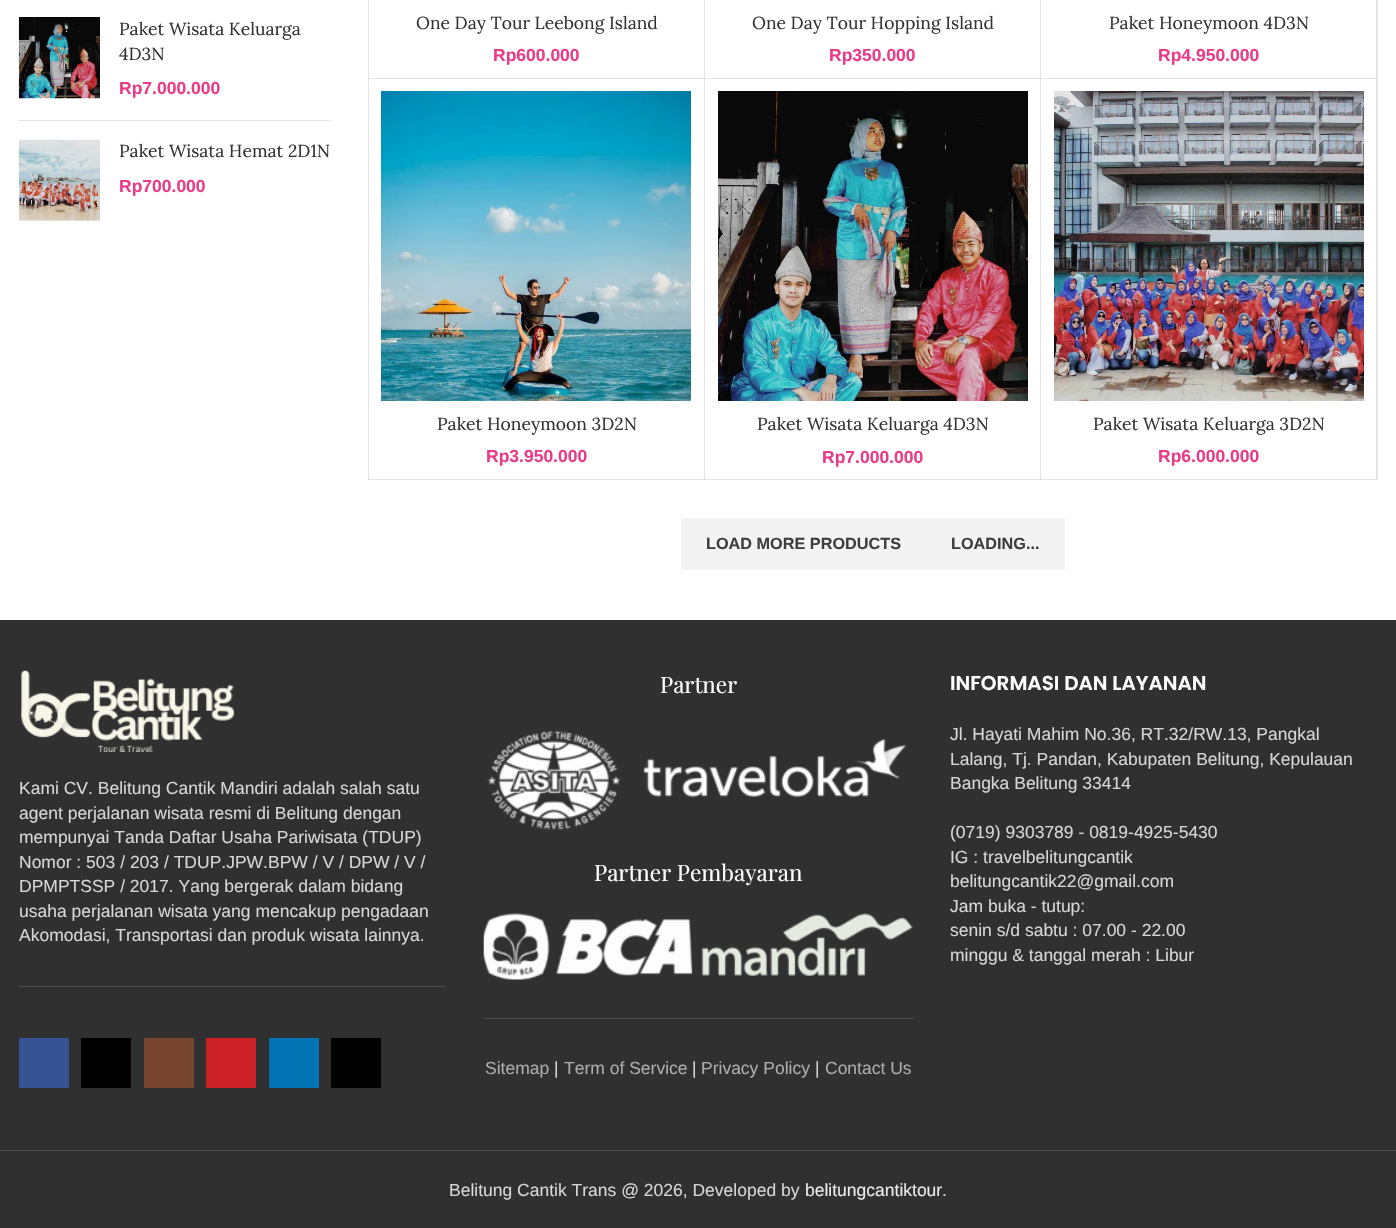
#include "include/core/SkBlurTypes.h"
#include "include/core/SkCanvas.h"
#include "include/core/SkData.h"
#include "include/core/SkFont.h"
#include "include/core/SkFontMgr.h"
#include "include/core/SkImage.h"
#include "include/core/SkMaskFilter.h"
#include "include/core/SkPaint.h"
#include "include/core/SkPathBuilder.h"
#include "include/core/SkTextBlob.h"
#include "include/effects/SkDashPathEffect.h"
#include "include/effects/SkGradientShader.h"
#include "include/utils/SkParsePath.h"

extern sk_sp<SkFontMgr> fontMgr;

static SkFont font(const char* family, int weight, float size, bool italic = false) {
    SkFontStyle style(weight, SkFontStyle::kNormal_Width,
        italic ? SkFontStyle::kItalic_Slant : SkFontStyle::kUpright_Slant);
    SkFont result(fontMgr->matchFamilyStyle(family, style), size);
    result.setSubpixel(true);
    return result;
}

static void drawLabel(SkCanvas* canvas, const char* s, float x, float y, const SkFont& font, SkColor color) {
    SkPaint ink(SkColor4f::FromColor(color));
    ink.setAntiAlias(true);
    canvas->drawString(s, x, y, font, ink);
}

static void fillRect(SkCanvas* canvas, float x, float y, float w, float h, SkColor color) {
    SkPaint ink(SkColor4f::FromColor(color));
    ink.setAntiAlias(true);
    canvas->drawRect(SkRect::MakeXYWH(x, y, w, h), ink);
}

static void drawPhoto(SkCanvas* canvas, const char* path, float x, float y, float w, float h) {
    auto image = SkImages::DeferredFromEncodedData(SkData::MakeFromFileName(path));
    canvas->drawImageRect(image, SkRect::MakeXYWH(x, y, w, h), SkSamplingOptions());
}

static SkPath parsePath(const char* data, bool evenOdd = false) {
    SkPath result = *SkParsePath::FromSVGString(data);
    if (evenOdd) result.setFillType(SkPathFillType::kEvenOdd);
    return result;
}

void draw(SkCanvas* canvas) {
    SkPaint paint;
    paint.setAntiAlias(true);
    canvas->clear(0xFFFFFFFF);
    fillRect(canvas, 19, 120, 311, 1, 0xFFE4E4E4);
    drawPhoto(canvas, "assets/img1.png", 18, 17, 82, 82);
    SkFont font1 = font("Lora", 400, 17.5f);
    drawLabel(canvas, "Paket Wisata Keluarga", 119, 35, font1, 0xFF333333);
    drawLabel(canvas, "4D3N", 119, 60, font1, 0xFF333333);
    SkFont font2 = font("Liberation Sans", 700, 17.5f);
    drawLabel(canvas, "Rp7.000.000", 119, 94, font2, 0xFFEA3B89);
    drawPhoto(canvas, "assets/img2.png", 18, 139, 82, 82);
    drawLabel(canvas, "Paket Wisata Hemat 2D1N", 119, 157, font1, 0xFF333333);
    drawLabel(canvas, "Rp700.000", 119, 192, font2, 0xFFEA3B89);
    fillRect(canvas, 368, 0, 1, 480, 0xFFE4E4E4);
    paint.setColor(0xFFE4E4E4);
    canvas->drawPath(parsePath("M705-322V79L704 78V-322Z"), paint);
    paint.setColor(0x1C000000);
    canvas->drawPath(parsePath("M705 79H369V78H704Z"), paint);
    drawLabel(canvas, "One Day Tour Leebong Island", 416, 29, font1, 0xFF333333);
    drawLabel(canvas, "Rp600.000", 493, 61, font2, 0xFFEA3B89);
    paint.setColor(0xFFE4E4E4);
    canvas->drawPath(parsePath("M1041-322V79L1040 78V-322Z"), paint);
    paint.setColor(0x1C000000);
    canvas->drawPath(parsePath("M1041 79H705V78H1040Z"), paint);
    drawLabel(canvas, "One Day Tour Hopping Island", 752, 29, font1, 0xFF333333);
    drawLabel(canvas, "Rp350.000", 829, 61, font2, 0xFFEA3B89);
    paint.setColor(0xFFE4E4E4);
    canvas->drawPath(parsePath("M1378-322V79L1376 78V-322Z"), paint);
    paint.setColor(0x1C000000);
    canvas->drawPath(parsePath("M1378 79H1041V78H1376Z"), paint);
    drawLabel(canvas, "Paket Honeymoon 4D3N", 1109, 29, font1, 0xFF333333);
    drawLabel(canvas, "Rp4.950.000", 1158, 61, font2, 0xFFEA3B89);
    paint.setColor(0xFFE4E4E4);
    canvas->drawPath(parsePath("M705 79V480L704 479V79Z"), paint);
    paint.setColor(0x1C000000);
    canvas->drawPath(parsePath("M705 480H369V479H704Z"), paint);
    drawPhoto(canvas, "assets/img3.png", 381, 91, 310, 310);
    drawLabel(canvas, "Paket Honeymoon 3D2N", 437, 430, font1, 0xFF333333);
    drawLabel(canvas, "Rp3.950.000", 486, 462, font2, 0xFFEA3B89);
    paint.setColor(0xFFE4E4E4);
    canvas->drawPath(parsePath("M1041 79V480L1040 479V79Z"), paint);
    paint.setColor(0x1C000000);
    canvas->drawPath(parsePath("M1041 480H705V479H1040Z"), paint);
    drawPhoto(canvas, "assets/img4.png", 718, 91, 310, 310);
    drawLabel(canvas, "Paket Wisata Keluarga 4D3N", 757, 430, font1, 0xFF333333);
    drawLabel(canvas, "Rp7.000.000", 822, 463, font2, 0xFFEA3B89);
    paint.setColor(0xFFE4E4E4);
    canvas->drawPath(parsePath("M1378 79V480L1376 479V79Z"), paint);
    paint.setColor(0x1C000000);
    canvas->drawPath(parsePath("M1378 480H1041V479H1376Z"), paint);
    drawPhoto(canvas, "assets/img5.png", 1054, 91, 310, 310);
    drawLabel(canvas, "Paket Wisata Keluarga 3D2N", 1093, 430, font1, 0xFF333333);
    drawLabel(canvas, "Rp6.000.000", 1158, 462, font2, 0xFFEA3B89);
    fillRect(canvas, 681, 518, 384, 52, 0xFFF3F3F3);
    SkFont font3 = font("Liberation Sans", 700, 16.25f);
    drawLabel(canvas, "LOAD MORE PRODUCTS", 706, 549, font3, 0xFF3E3E3E);
    drawLabel(canvas, "LOADING...", 951, 549, font3, 0xFF3E3E3E);
    fillRect(canvas, 0, 620, 1396, 608, 0xFF303030);
    fillRect(canvas, 19, 986, 427, 1, 0xFF4F4F4F);
    drawPhoto(canvas, "assets/img6.png", 21, 670, 214, 82);
    SkFont font4 = font("Liberation Sans", 400, 17.5f);
    drawLabel(canvas, "Kami CV. Belitung Cantik Mandiri adalah salah satu", 19, 794, font4, 0xFFD6D6D6);
    drawLabel(canvas, "agent perjalanan wisata resmi di Belitung dengan", 19, 819, font4, 0xFFD6D6D6);
    drawLabel(canvas, "mempunyai Tanda Daftar Usaha Pariwisata (TDUP)", 19, 843, font4, 0xFFD6D6D6);
    drawLabel(canvas, "Nomor : 503 / 203 / TDUP.JPW.BPW / V / DPW / V /", 19, 868, font4, 0xFFD6D6D6);
    drawLabel(canvas, "DPMPTSSP / 2017. Yang bergerak dalam bidang", 19, 892, font4, 0xFFD6D6D6);
    drawLabel(canvas, "usaha perjalanan wisata yang mencakup pengadaan", 19, 917, font4, 0xFFD6D6D6);
    drawLabel(canvas, "Akomodasi, Transportasi dan produk wisata lainnya.", 19, 941, font4, 0xFFD6D6D6);
    fillRect(canvas, 19, 1038, 50, 50, 0xFF365493);
    fillRect(canvas, 81, 1038, 50, 50, 0xFF000000);
    fillRect(canvas, 144, 1038, 50, 50, 0xFF774430);
    fillRect(canvas, 206, 1038, 50, 50, 0xFFCB2027);
    fillRect(canvas, 269, 1038, 50, 50, 0xFF0274B3);
    fillRect(canvas, 331, 1038, 50, 50, 0xFF010101);
    fillRect(canvas, 484, 1018, 429, 1, 0xFF4F4F4F);
    SkFont font5 = font("Playfair Display", 400, 22.5f);
    drawLabel(canvas, "Partner", 660, 693, font5, 0xFFFFFFFF);
    drawPhoto(canvas, "assets/img7.png", 487, 730, 420, 100);
    drawLabel(canvas, "Partner Pembayaran", 594, 881, font5, 0xFFFFFFFF);
    drawPhoto(canvas, "assets/img8.png", 483, 913, 430, 67);
    drawLabel(canvas, "Sitemap", 485, 1074, font4, 0xFFACACAC);
    drawLabel(canvas, "|", 554, 1074, font4, 0xFFD6D6D6);
    drawLabel(canvas, "Term of Service", 564, 1074, font4, 0xFFACACAC);
    drawLabel(canvas, "|", 692, 1074, font4, 0xFFD6D6D6);
    drawLabel(canvas, "Privacy Policy", 701, 1074, font4, 0xFFACACAC);
    drawLabel(canvas, "|", 815, 1074, font4, 0xFFD6D6D6);
    drawLabel(canvas, "Contact Us", 825, 1074, font4, 0xFFACACAC);
    SkFont font6 = font("Poppins", 600, 20);
    drawLabel(canvas, "INFORMASI DAN LAYANAN", 950, 690, font6, 0xFFFFFFFF);
    drawLabel(canvas, "Jl. Hayati Mahim No.36, RT.32/RW.13, Pangkal", 950, 740, font4, 0xFFD6D6D6);
    drawLabel(canvas, "Lalang, Tj. Pandan, Kabupaten Belitung, Kepulauan", 950, 765, font4, 0xFFD6D6D6);
    drawLabel(canvas, "Bangka Belitung 33414", 950, 789, font4, 0xFFD6D6D6);
    drawLabel(canvas, "(0719) 9303789 - 0819-4925-5430", 950, 838, font4, 0xFFD6D6D6);
    drawLabel(canvas, "IG : travelbelitungcantik", 950, 863, font4, 0xFFD6D6D6);
    drawLabel(canvas, "belitungcantik22@gmail.com", 950, 887, font4, 0xFFD6D6D6);
    drawLabel(canvas, "Jam buka - tutup:", 950, 912, font4, 0xFFD6D6D6);
    drawLabel(canvas, "senin s/d sabtu : 07.00 - 22.00", 950, 936, font4, 0xFFD6D6D6);
    drawLabel(canvas, "minggu & tanggal merah : Libur", 950, 961, font4, 0xFFD6D6D6);
    fillRect(canvas, 0, 1150, 1396, 1, 0xFF4F4F4F);
    drawLabel(canvas, "Belitung Cantik Trans @ 2026, Developed by", 449, 1196, font4, 0xFFD6D6D6);
    drawLabel(canvas, "belitungcantiktour", 805, 1196, font4, 0xFFEAEAEA);
    drawLabel(canvas, ".", 942, 1196, font4, 0xFFD6D6D6);
}
